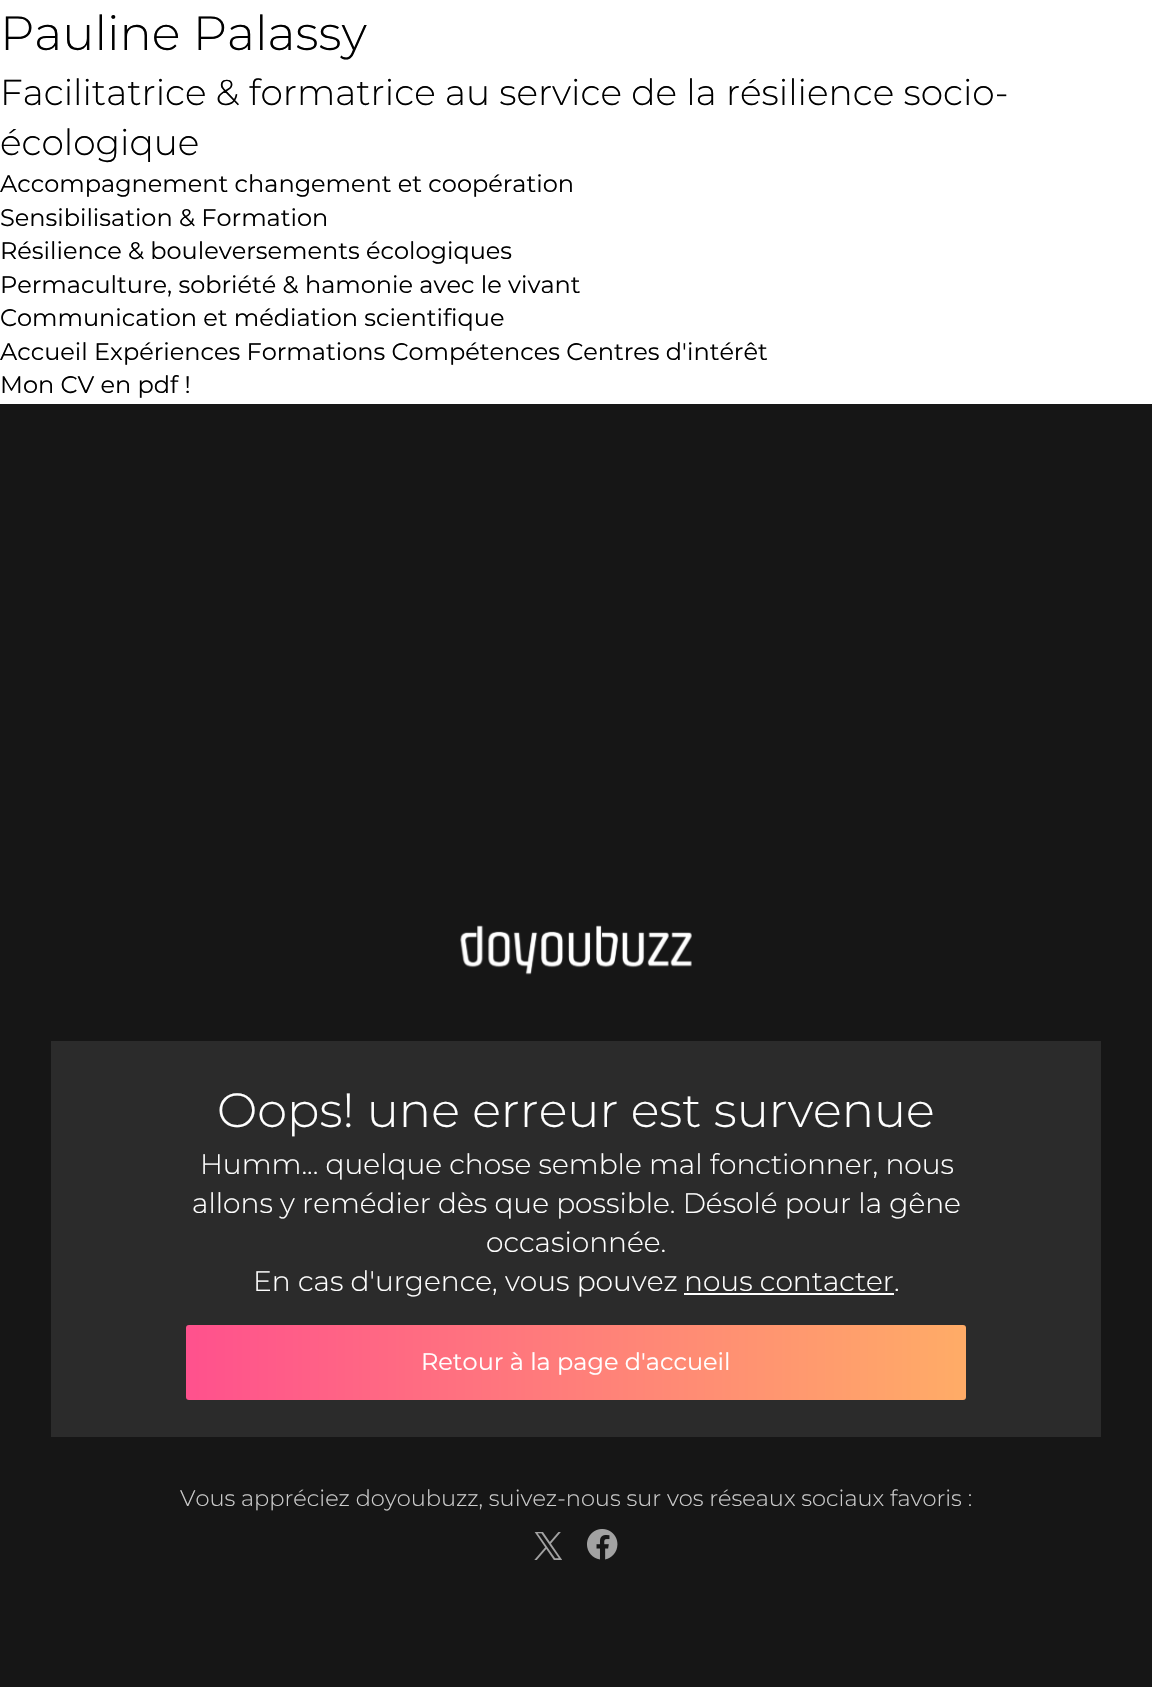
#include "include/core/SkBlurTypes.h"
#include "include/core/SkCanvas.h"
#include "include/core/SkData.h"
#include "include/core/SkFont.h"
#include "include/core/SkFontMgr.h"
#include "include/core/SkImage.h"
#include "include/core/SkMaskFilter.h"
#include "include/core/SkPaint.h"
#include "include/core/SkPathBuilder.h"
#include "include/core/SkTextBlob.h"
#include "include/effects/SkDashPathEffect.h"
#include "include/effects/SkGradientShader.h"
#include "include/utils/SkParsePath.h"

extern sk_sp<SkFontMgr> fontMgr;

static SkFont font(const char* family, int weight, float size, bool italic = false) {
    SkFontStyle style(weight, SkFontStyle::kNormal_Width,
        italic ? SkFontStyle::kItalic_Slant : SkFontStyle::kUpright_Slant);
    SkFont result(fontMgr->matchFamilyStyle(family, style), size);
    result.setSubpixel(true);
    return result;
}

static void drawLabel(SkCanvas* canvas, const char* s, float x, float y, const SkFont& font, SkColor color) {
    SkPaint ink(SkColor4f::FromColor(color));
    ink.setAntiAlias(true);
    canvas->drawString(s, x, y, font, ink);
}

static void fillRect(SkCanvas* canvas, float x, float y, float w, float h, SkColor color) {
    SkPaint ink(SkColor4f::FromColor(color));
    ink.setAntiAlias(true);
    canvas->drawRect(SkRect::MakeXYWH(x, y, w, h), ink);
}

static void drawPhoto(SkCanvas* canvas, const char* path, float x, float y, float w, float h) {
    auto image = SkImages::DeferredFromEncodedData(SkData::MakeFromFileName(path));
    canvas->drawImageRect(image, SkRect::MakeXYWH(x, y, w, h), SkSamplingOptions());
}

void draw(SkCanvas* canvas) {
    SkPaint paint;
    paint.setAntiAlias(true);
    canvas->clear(0xFFFFFFFF);
    SkFont font1 = font("Montserrat", 300, 48);
    drawLabel(canvas, "Pauline Palassy", 0, 50, font1, 0xFF000000);
    SkFont font2 = font("Montserrat", 300, 36);
    drawLabel(canvas, "Facilitatrice & formatrice au service de la résilience socio-", 0, 105, font2, 0xFF000000);
    drawLabel(canvas, "écologique", 0, 155, font2, 0xFF000000);
    SkFont font3 = font("Montserrat", 400, 24);
    drawLabel(canvas, "Accompagnement changement et coopération", 0, 192, font3, 0xFF000000);
    drawLabel(canvas, "Sensibilisation & Formation", 0, 226, font3, 0xFF000000);
    drawLabel(canvas, "Résilience & bouleversements écologiques", 0, 259, font3, 0xFF000000);
    drawLabel(canvas, "Permaculture, sobriété & hamonie avec le vivant", 0, 293, font3, 0xFF000000);
    drawLabel(canvas, "Communication et médiation scientifique", 0, 326, font3, 0xFF000000);
    drawLabel(canvas, "Accueil Expériences Formations Compétences Centres d'intérêt", 0, 360, font3, 0xFF000000);
    drawLabel(canvas, "Mon CV en pdf !", 0, 393, font3, 0xFF000000);
    fillRect(canvas, 0, 404, 1152, 1283, 0xFF161616);
    drawPhoto(canvas, "assets/img1.png", 460, 925, 232, 50);
    fillRect(canvas, 51, 1041, 1050, 396, 0xFF2B2B2B);
    drawLabel(canvas, "Oops! une erreur est survenue", 217, 1127, font1, 0xFFFFFFFF);
    SkFont font4 = font("Montserrat", 300, 28.1f);
    drawLabel(canvas, "Humm... quelque chose semble mal fonctionner, nous", 200, 1174, font4, 0xFFFFFFFF);
    drawLabel(canvas, "allons y remédier dès que possible. Désolé pour la gêne", 192, 1213, font4, 0xFFFFFFFF);
    drawLabel(canvas, "occasionnée.", 486, 1252, font4, 0xFFFFFFFF);
    drawLabel(canvas, "En cas d'urgence, vous pouvez", 253, 1291, font4, 0xFFFFFFFF);
    drawLabel(canvas, "nous contacter.", 684, 1291, font4, 0xFFFFFFFF);
    fillRect(canvas, 684, 1293, 210, 2, 0xFFFFFFFF);
    {
        const SkColor colors[] = {0xFFFF518D, 0xFFFFAB67, 0xFFFFAB67, 0xFFFF518D};
        const float stops[] = {0, 0.33f, 0.67f, 1};
        const SkPoint ends[] = {{186, 1362}, {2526, 1362}};
        paint.setShader(SkGradientShader::MakeLinear(ends, colors, stops, 4, SkTileMode::kClamp));
        paint.setAlpha(255);
    }
    canvas->drawRoundRect(SkRect::MakeXYWH(186, 1325, 780, 75), 3, 3, paint);
    drawLabel(canvas, "Retour à la page d'accueil", 421, 1370, font3, 0xFFFFFFFF);
    SkFont font5 = font("Montserrat", 300, 22.5f);
    drawLabel(canvas, "Vous appréciez doyoubuzz, suivez-nous sur vos réseaux sociaux favoris :", 180, 1506, font5, 0xFFCCCCCC);
    drawPhoto(canvas, "assets/img2.png", 534, 1532, 28, 28);
    drawPhoto(canvas, "assets/img3.png", 587, 1529, 31, 31);
}
